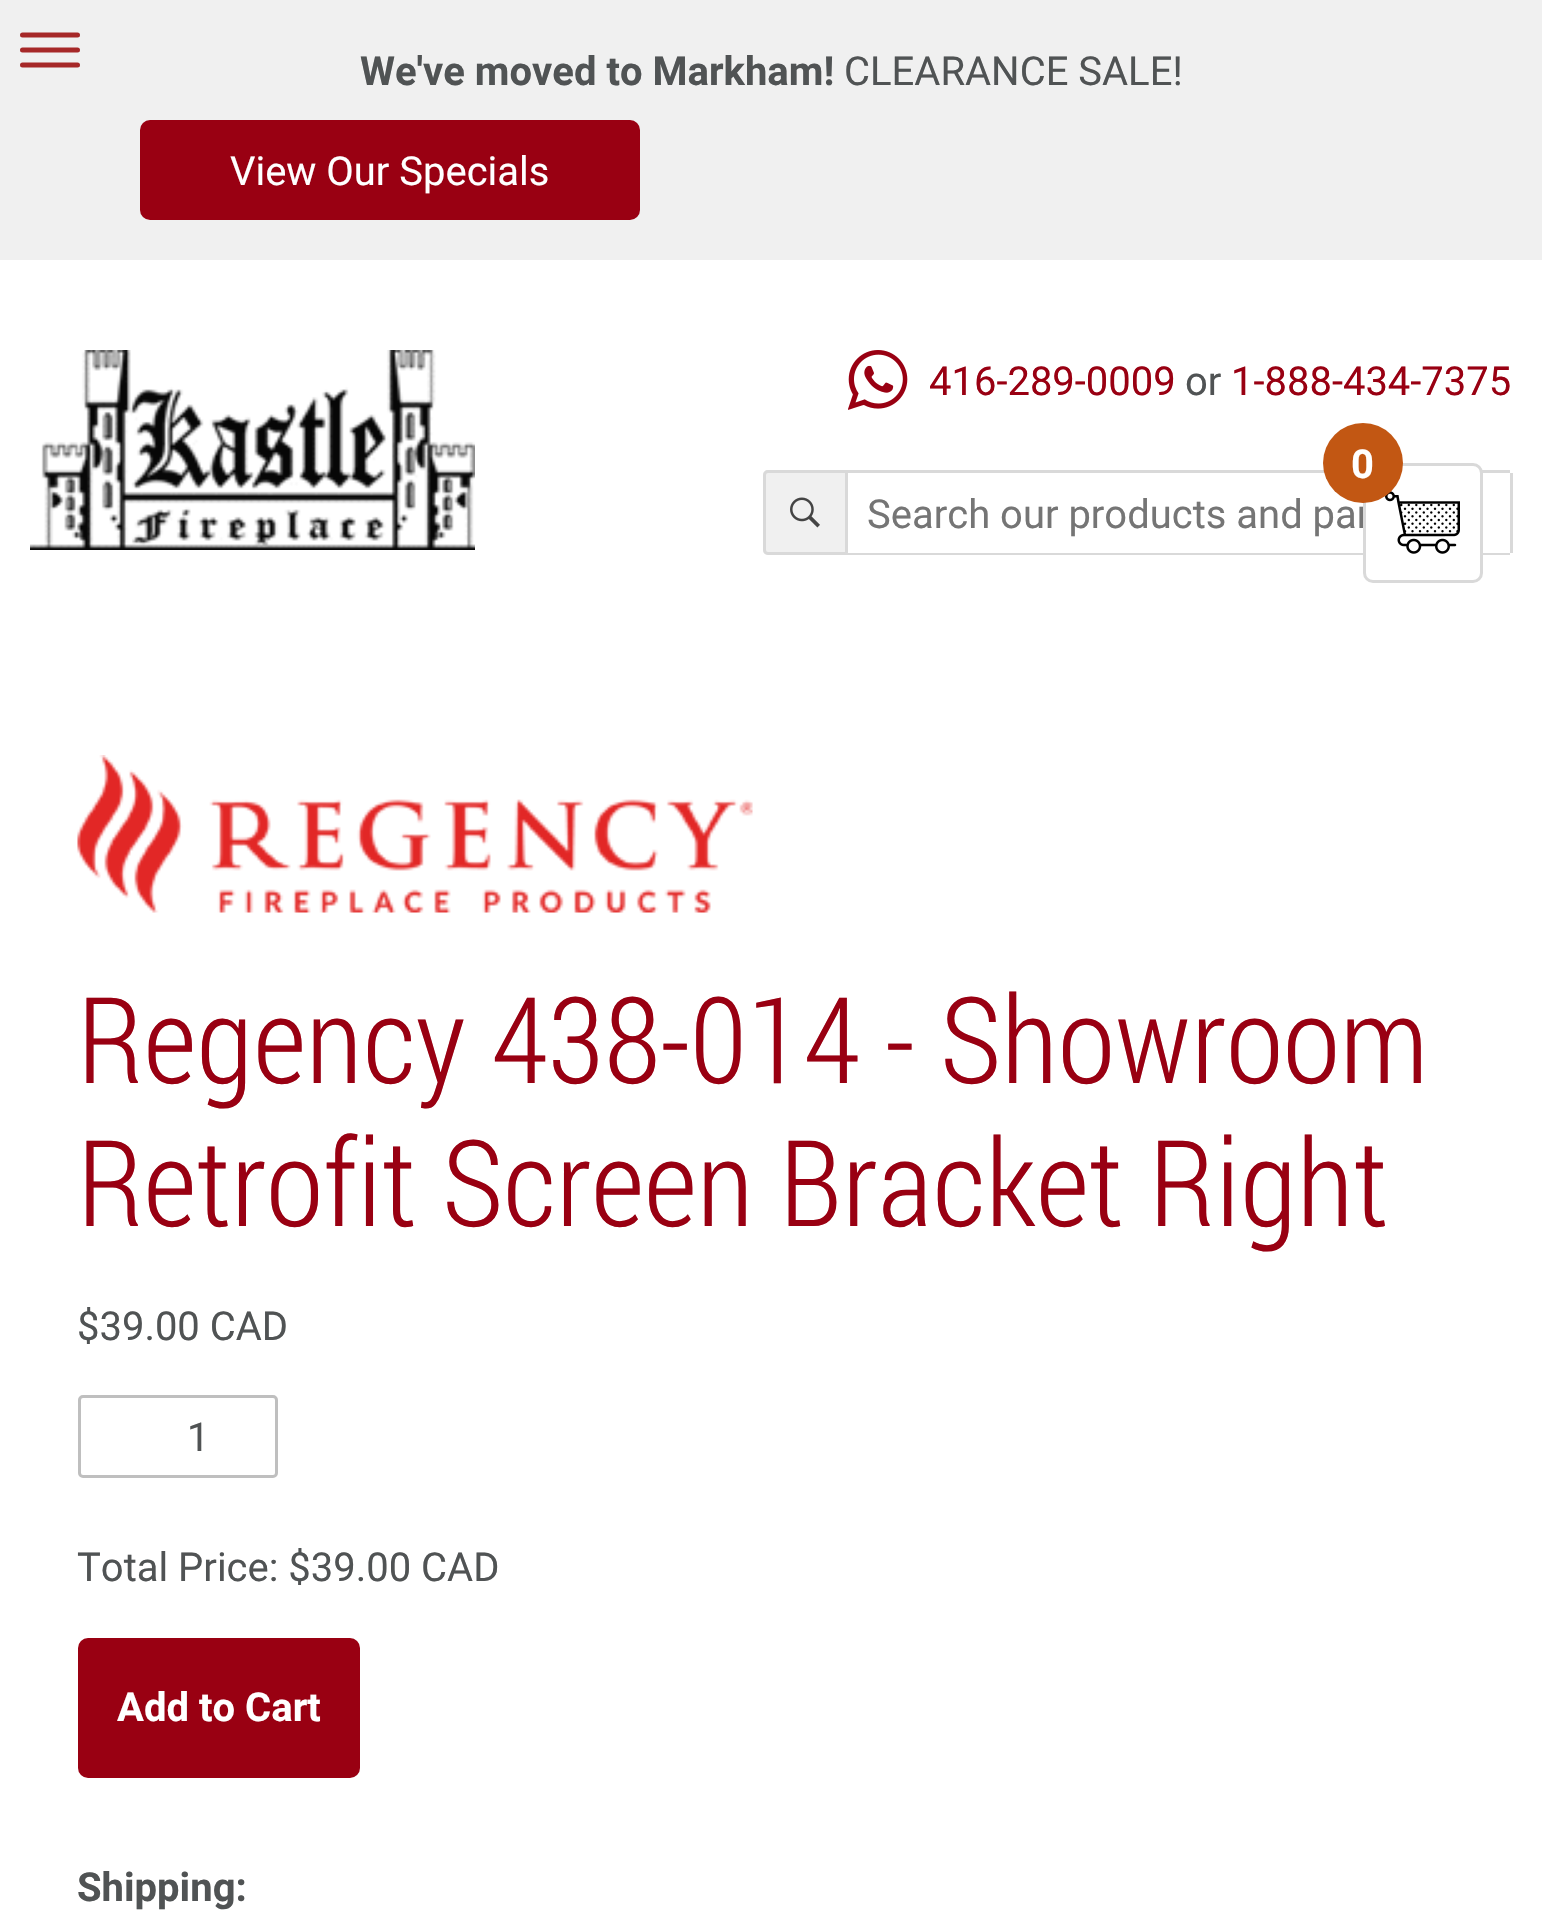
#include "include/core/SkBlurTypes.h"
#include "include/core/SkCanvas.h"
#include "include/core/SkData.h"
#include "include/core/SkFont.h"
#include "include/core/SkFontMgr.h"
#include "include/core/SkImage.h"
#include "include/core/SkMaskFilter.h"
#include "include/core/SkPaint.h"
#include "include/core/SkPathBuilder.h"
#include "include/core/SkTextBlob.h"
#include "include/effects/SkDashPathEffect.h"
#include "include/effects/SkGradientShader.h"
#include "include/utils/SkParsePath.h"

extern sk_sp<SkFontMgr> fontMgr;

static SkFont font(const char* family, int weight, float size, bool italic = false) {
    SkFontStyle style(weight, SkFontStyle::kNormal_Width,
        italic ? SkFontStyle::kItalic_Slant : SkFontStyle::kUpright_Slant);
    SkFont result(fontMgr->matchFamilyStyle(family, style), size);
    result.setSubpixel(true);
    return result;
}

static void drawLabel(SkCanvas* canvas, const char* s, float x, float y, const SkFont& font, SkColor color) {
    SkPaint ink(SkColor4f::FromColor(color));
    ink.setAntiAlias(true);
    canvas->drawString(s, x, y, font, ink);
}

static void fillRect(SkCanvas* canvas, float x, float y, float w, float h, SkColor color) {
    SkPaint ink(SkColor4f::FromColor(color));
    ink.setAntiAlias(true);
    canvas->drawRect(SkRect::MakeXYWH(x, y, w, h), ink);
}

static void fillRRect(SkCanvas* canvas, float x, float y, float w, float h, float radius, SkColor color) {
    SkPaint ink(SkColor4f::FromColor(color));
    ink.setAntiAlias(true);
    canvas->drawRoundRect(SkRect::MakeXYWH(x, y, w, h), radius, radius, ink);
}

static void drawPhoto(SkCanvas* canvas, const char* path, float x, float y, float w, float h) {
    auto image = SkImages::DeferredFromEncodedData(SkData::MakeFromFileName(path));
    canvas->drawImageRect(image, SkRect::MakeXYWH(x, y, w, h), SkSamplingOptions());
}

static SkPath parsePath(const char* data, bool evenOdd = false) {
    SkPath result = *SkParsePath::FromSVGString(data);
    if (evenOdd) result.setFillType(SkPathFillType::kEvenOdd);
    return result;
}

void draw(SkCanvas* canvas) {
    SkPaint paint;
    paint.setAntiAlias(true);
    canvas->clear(0xFFFFFFFF);
    fillRect(canvas, 0, 0, 1542, 260, 0xFFF0F0F0);
    paint.setStroke(true);
    paint.setStrokeWidth(5);
    paint.setStrokeCap(SkPaint::kRound_Cap);
    paint.setColor(0xFFA62828);
    canvas->drawPath(parsePath("M22.5 35H77.5M22.5 50H77.5M22.5 65H77.5"), paint);
    SkFont font1 = font("Roboto", 700, 40);
    drawLabel(canvas, "We've moved to Markham!", 360, 85, font1, 0xFF505354);
    SkFont font2 = font("Roboto", 400, 40);
    drawLabel(canvas, "CLEARANCE SALE!", 844, 85, font2, 0xFF505354);
    fillRRect(canvas, 140, 120, 500, 100, 10, 0xFF990012);
    drawLabel(canvas, "View Our Specials", 230, 185, font2, 0xFFFFFFFF);
    drawPhoto(canvas, "assets/img1.png", 30, 350, 445, 200);
    drawPhoto(canvas, "assets/img2.png", 848, 350, 60, 60);
    drawLabel(canvas, "416-289-0009", 929, 395, font2, 0xFF990012);
    drawLabel(canvas, "or", 1185, 395, font2, 0xFF505354);
    drawLabel(canvas, "1-888-434-7375", 1231, 395, font2, 0xFF990012);
    paint.setStroke(false);
    paint.setColor(0xFFF0F0F0);
    canvas->drawPath(parsePath("M768 470H848V555H768C765 555 763 553 763 550V475C763 472 765 470 768 470Z"), paint);
    drawPhoto(canvas, "assets/img3.png", 790, 497, 30, 31);
    paint.setStroke(true);
    paint.setStrokeWidth(3);
    paint.setStrokeCap(SkPaint::kButt_Cap);
    paint.setColor(0xFFD9D9D9);
    canvas->drawPath(parsePath("M768 471.5H846.5V553.5H768C766 553.5 764.5 552 764.5 550V475C764.5 473 766 471.5 768 471.5Z"), paint);
    fillRect(canvas, 848, 470, 662, 3, 0xFFD9D9D9);
    fillRect(canvas, 1510, 473, 3, 80, 0xFFD9D9D9);
    fillRect(canvas, 848, 553, 662, 2, 0xFFD9D9D9);
    drawLabel(canvas, "Search our products and par", 867, 528, font2, 0xFF757575);
    drawPhoto(canvas, "assets/img4.png", 77, 755, 676, 158);
    SkFont font3 = font("Roboto Condensed", 300, 120);
    drawLabel(canvas, "Regency 438-014 - Showroom", 77, 1083, font3, 0xFF990012);
    drawLabel(canvas, "Retrofit Screen Bracket Right", 77, 1226, font3, 0xFF990012);
    drawLabel(canvas, "$39.00 CAD", 77, 1340, font2, 0xFF505354);
    paint.setColor(0xFFBFBFBF);
    canvas->drawRoundRect(SkRect::MakeXYWH(79.5f, 1396.5f, 197, 80), 3.5f, 3.5f, paint);
    drawLabel(canvas, "1", 187, 1451, font2, 0xFF505354);
    drawLabel(canvas, "Total Price: $39.00 CAD", 77, 1581, font2, 0xFF505354);
    fillRRect(canvas, 78, 1638, 282, 140, 10, 0xFF990012);
    drawLabel(canvas, "Add to Cart", 117, 1721, font1, 0xFFFFFFFF);
    drawLabel(canvas, "Shipping:", 77, 1901, font1, 0xFF505354);
    paint.setStroke(false);
    paint.setColor(0xFFFFFFFF);
    canvas->drawRoundRect(SkRect::MakeXYWH(1364.5f, 464.5f, 117, 117), 8.5f, 8.5f, paint);
    paint.setStroke(true);
    paint.setColor(0xFFD9D9D9);
    canvas->drawRoundRect(SkRect::MakeXYWH(1364.5f, 464.5f, 117, 117), 8.5f, 8.5f, paint);
    drawPhoto(canvas, "assets/img5.png", 1385, 491, 75, 63);
    paint.setStroke(false);
    paint.setColor(0xFFC25713);
    canvas->drawCircle(1363, 463, 40, paint);
    drawLabel(canvas, "0", 1351, 478, font1, 0xFFFFFFFF);
}
